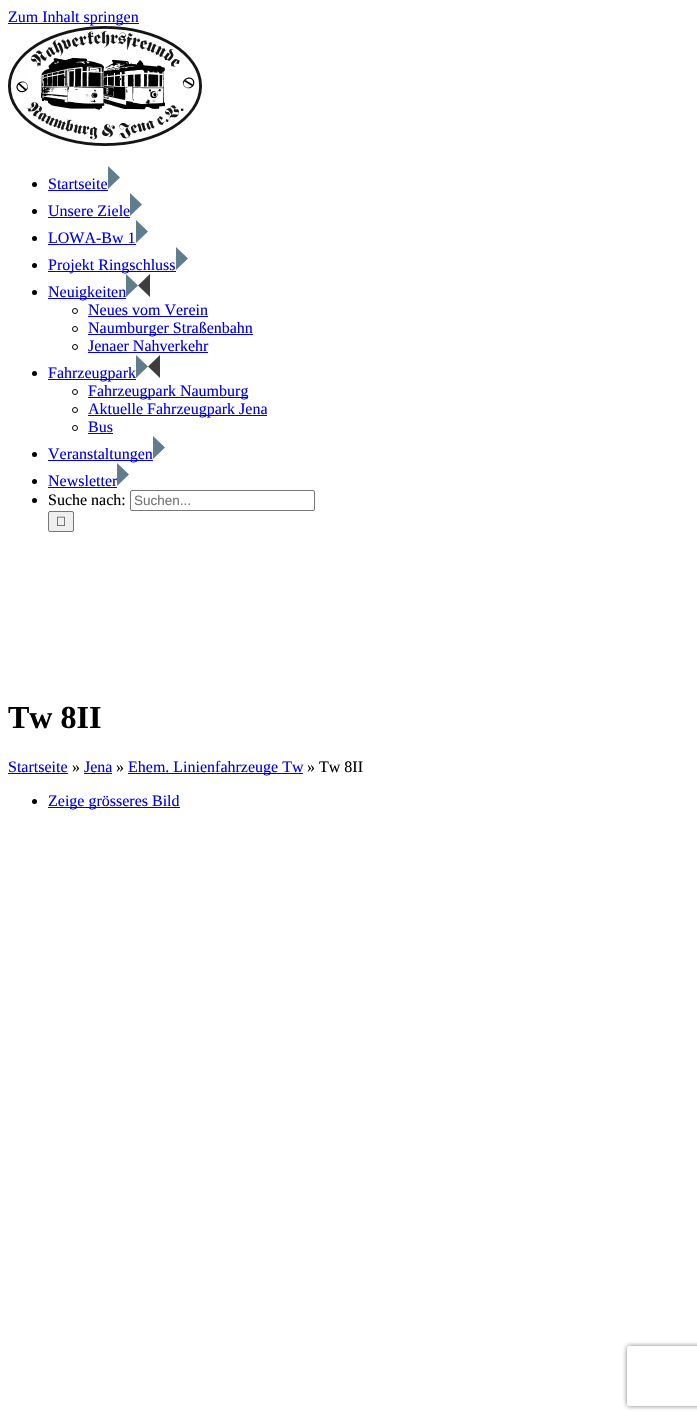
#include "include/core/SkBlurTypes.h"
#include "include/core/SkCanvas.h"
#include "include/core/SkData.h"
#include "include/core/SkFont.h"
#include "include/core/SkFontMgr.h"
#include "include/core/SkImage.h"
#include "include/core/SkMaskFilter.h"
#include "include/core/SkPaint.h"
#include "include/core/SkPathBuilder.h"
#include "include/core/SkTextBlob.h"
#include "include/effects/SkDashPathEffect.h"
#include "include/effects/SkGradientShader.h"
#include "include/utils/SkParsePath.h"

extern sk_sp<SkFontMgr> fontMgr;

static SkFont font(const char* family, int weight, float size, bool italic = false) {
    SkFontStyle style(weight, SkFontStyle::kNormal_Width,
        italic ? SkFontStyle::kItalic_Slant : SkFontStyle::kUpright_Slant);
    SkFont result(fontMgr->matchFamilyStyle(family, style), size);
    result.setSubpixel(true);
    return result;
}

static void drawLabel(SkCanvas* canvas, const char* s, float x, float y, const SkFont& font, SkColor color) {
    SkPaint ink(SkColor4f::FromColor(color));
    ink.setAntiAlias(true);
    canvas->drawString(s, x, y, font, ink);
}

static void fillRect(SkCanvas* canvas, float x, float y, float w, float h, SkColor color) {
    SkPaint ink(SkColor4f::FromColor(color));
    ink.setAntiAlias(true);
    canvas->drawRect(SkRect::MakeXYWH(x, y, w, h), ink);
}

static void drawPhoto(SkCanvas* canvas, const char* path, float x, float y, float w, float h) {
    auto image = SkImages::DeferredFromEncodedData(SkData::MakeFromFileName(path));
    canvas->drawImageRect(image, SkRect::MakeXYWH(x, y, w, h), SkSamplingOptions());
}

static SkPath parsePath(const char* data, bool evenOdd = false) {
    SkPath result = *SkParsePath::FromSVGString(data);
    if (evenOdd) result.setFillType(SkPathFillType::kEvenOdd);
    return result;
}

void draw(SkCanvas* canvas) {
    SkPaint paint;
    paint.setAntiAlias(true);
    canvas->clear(0xFFFFFFFF);
    fillRect(canvas, 8, 23, 131, 1, 0xFF0000EE);
    SkFont font1 = font("Liberation Serif", 400, 16);
    drawLabel(canvas, "Zum Inhalt springen", 8, 22, font1, 0xFF0000EE);
    drawPhoto(canvas, "assets/img1.png", 8, 26, 194, 120);
    paint.setColor(0xFF000000);
    canvas->drawCircle(34.5f, 184.5f, 2.5f, paint);
    drawLabel(canvas, "Startseite", 48, 189, font1, 0xFF0000EE);
    fillRect(canvas, 48, 190, 60, 1, 0xFF0000EE);
    drawLabel(canvas, "Unsere Ziele", 48, 216, font1, 0xFF0000EE);
    paint.setColor(0xFF607D8B);
    canvas->drawPath(parsePath("M108 166L120 177.5L108 189ZM130 193L142 204.5L130 216Z"), paint);
    paint.setColor(0xFF000000);
    canvas->drawCircle(34.5f, 211.5f, 2.5f, paint);
    fillRect(canvas, 48, 217, 82, 1, 0xFF0000EE);
    canvas->drawCircle(34.5f, 238.5f, 2.5f, paint);
    drawLabel(canvas, "LOWA-Bw 1", 48, 243, font1, 0xFF0000EE);
    fillRect(canvas, 48, 244, 88, 1, 0xFF0000EE);
    fillRect(canvas, 48, 271, 128, 1, 0xFF0000EE);
    drawLabel(canvas, "Projekt Ringschluss", 48, 270, font1, 0xFF0000EE);
    paint.setColor(0xFF607D8B);
    canvas->drawPath(parsePath("M136 220L148 231.5L136 243ZM176 247L188 258.5L176 270Z"), paint);
    paint.setColor(0xFF000000);
    canvas->drawCircle(34.5f, 265.5f, 2.5f, paint);
    canvas->drawCircle(34.5f, 292.5f, 2.5f, paint);
    fillRect(canvas, 48, 298, 78, 1, 0xFF0000EE);
    drawLabel(canvas, "Neuigkeiten", 48, 297, font1, 0xFF0000EE);
    paint.setColor(0xFF607D8B);
    canvas->drawPath(parsePath("M126 274L138 285.5L126 297Z"), paint);
    paint.setColor(0xFF3E3E3E);
    canvas->drawPath(parsePath("M150 274L138 285.5L150 297Z"), paint);
    paint.setStroke(true);
    paint.setStrokeWidth(1);
    paint.setColor(0xFF000000);
    canvas->drawCircle(75, 311, 2.5f, paint);
    drawLabel(canvas, "Neues vom Verein", 88, 315, font1, 0xFF0000EE);
    fillRect(canvas, 88, 316, 120, 1, 0xFF0000EE);
    canvas->drawCircle(75, 329, 2.5f, paint);
    fillRect(canvas, 88, 334, 165, 1, 0xFF0000EE);
    drawLabel(canvas, "Naumburger Straßenbahn", 88, 333, font1, 0xFF0000EE);
    canvas->drawCircle(75, 347, 2.5f, paint);
    drawLabel(canvas, "Jenaer Nahverkehr", 88, 351, font1, 0xFF0000EE);
    fillRect(canvas, 88, 352, 120, 1, 0xFF0000EE);
    paint.setStroke(false);
    canvas->drawCircle(34.5f, 373.5f, 2.5f, paint);
    fillRect(canvas, 48, 379, 88, 1, 0xFF0000EE);
    drawLabel(canvas, "Fahrzeugpark", 48, 378, font1, 0xFF0000EE);
    paint.setColor(0xFF607D8B);
    canvas->drawPath(parsePath("M136 355L148 366.5L136 378Z"), paint);
    paint.setColor(0xFF3E3E3E);
    canvas->drawPath(parsePath("M160 355L148 366.5L160 378Z"), paint);
    paint.setStroke(true);
    paint.setColor(0xFF000000);
    canvas->drawCircle(75, 392, 2.5f, paint);
    fillRect(canvas, 88, 397, 160, 1, 0xFF0000EE);
    drawLabel(canvas, "Fahrzeugpark Naumburg", 88, 396, font1, 0xFF0000EE);
    canvas->drawCircle(75, 410, 2.5f, paint);
    fillRect(canvas, 88, 415, 179, 1, 0xFF0000EE);
    drawLabel(canvas, "Aktuelle Fahrzeugpark Jena", 88, 414, font1, 0xFF0000EE);
    canvas->drawCircle(75, 428, 2.5f, paint);
    drawLabel(canvas, "Bus", 88, 432, font1, 0xFF0000EE);
    fillRect(canvas, 88, 433, 25, 1, 0xFF0000EE);
    paint.setStroke(false);
    canvas->drawCircle(34.5f, 454.5f, 2.5f, paint);
    fillRect(canvas, 48, 460, 105, 1, 0xFF0000EE);
    drawLabel(canvas, "Veranstaltungen", 48, 459, font1, 0xFF0000EE);
    drawLabel(canvas, "Newsletter", 48, 486, font1, 0xFF0000EE);
    paint.setColor(0xFF607D8B);
    canvas->drawPath(parsePath("M153 436L165 447.5L153 459ZM117 463L129 474.5L117 486Z"), paint);
    paint.setColor(0xFF000000);
    canvas->drawCircle(34.5f, 481.5f, 2.5f, paint);
    fillRect(canvas, 48, 487, 69, 1, 0xFF0000EE);
    canvas->drawCircle(34.5f, 500.5f, 2.5f, paint);
    drawLabel(canvas, "Suche nach:", 48, 505, font1, 0xFF000000);
    paint.setStroke(true);
    paint.setColor(0xFF767676);
    canvas->drawRoundRect(SkRect::MakeXYWH(130.5f, 490.5f, 184, 20), 1.5f, 1.5f, paint);
    SkFont font2 = font("Liberation Sans", 400, 13.5f);
    drawLabel(canvas, "Suchen...", 134, 505, font2, 0xFF757575);
    paint.setStroke(false);
    paint.setColor(0xFFEFEFEF);
    canvas->drawRoundRect(SkRect::MakeXYWH(48.5f, 511.5f, 25, 20), 1.5f, 1.5f, paint);
    paint.setStroke(true);
    paint.setColor(0xFF767676);
    canvas->drawRoundRect(SkRect::MakeXYWH(48.5f, 511.5f, 25, 20), 1.5f, 1.5f, paint);
    drawPhoto(canvas, "assets/img2.png", 57, 516, 8, 10);
    SkFont font3 = font("Liberation Serif", 700, 32);
    drawLabel(canvas, "Tw 8II", 8, 728, font3, 0xFF000000);
    drawLabel(canvas, "Startseite", 8, 772, font1, 0xFF0000EE);
    fillRect(canvas, 8, 773, 60, 1, 0xFF0000EE);
    drawLabel(canvas, "»", 72, 772, font1, 0xFF000000);
    drawLabel(canvas, "Jena", 84, 772, font1, 0xFF0000EE);
    fillRect(canvas, 84, 773, 28, 1, 0xFF0000EE);
    drawLabel(canvas, "»", 116, 772, font1, 0xFF000000);
    fillRect(canvas, 128, 773, 175, 1, 0xFF0000EE);
    drawLabel(canvas, "Ehem. Linienfahrzeuge Tw", 128, 772, font1, 0xFF0000EE);
    drawLabel(canvas, "» Tw 8II", 307, 772, font1, 0xFF000000);
    paint.setStroke(false);
    paint.setColor(0xFF000000);
    canvas->drawCircle(34.5f, 801.5f, 2.5f, paint);
    fillRect(canvas, 48, 807, 132, 1, 0xFF0000EE);
    drawLabel(canvas, "Zeige grösseres Bild", 48, 806, font1, 0xFF0000EE);
    canvas->save();
    canvas->clipPath(parsePath("M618 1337H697V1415H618ZM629 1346H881C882 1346 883 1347 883 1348V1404C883 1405 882 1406 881 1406H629C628 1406 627 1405 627 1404V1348C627 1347 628 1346 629 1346Z", true), true);
    paint.setColor(0xFF808080);
    paint.setMaskFilter(SkMaskFilter::MakeBlur(kNormal_SkBlurStyle, 2.5f));
    canvas->drawRoundRect(SkRect::MakeXYWH(627, 1346, 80, 60), 2, 2, paint);
    paint.setMaskFilter(nullptr);
    canvas->restore();
}
